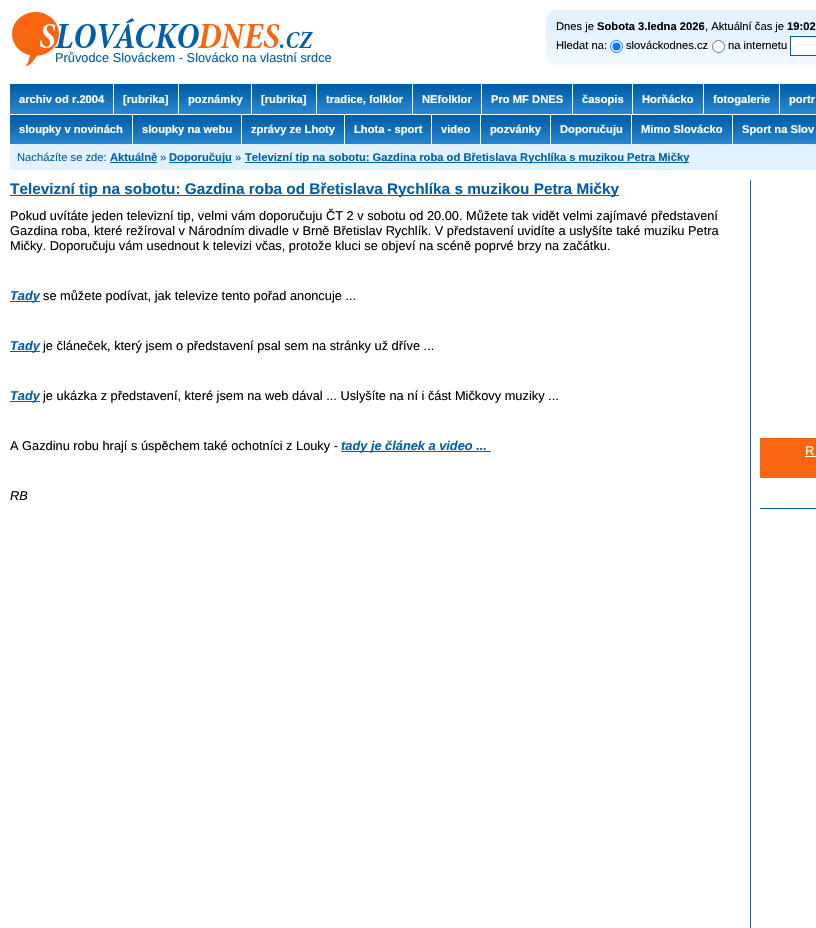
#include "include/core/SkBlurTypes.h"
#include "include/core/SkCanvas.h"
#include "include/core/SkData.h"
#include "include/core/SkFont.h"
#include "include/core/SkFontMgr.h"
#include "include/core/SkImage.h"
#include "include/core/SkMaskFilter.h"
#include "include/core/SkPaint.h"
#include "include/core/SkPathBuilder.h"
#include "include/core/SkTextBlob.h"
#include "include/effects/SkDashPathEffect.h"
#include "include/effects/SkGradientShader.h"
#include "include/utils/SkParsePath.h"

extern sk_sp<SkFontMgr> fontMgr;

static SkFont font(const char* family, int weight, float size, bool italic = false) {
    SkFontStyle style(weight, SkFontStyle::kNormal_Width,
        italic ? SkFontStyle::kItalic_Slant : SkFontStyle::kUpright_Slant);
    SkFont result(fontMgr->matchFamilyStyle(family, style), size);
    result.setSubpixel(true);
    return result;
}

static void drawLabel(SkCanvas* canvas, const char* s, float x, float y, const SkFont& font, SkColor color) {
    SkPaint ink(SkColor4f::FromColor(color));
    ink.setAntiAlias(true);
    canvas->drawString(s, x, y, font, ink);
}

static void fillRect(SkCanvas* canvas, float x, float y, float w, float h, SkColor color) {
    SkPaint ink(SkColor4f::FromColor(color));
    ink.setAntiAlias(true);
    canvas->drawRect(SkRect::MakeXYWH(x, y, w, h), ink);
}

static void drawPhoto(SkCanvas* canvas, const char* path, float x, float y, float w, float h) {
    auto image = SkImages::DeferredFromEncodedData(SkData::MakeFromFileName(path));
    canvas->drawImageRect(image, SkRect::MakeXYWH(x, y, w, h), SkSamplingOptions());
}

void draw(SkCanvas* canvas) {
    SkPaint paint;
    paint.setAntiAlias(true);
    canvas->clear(0xFFFFFFFF);
    drawPhoto(canvas, "assets/img1.png", 12, 12, 301, 54);
    drawPhoto(canvas, "assets/img2.png", 546, 10, 270, 56);
    SkFont font1 = font("Liberation Sans", 400, 11.2f);
    drawLabel(canvas, "Dnes je", 556, 30, font1, 0xFF000000);
    SkFont font2 = font("Liberation Sans", 700, 11.2f);
    drawLabel(canvas, "Sobota 3.ledna 2026", 597, 30, font2, 0xFF000000);
    drawLabel(canvas, ", Aktuální čas je", 705, 30, font1, 0xFF000000);
    drawLabel(canvas, "19:02", 787, 30, font2, 0xFF000000);
    drawLabel(canvas, "Hledat na:", 556, 49, font1, 0xFF000000);
    paint.setColor(0xFFFFFFFF);
    canvas->drawCircle(616.5f, 46.5f, 6, paint);
    paint.setStroke(true);
    paint.setStrokeWidth(1);
    paint.setColor(0xFF0075FF);
    canvas->drawCircle(616.5f, 46.5f, 6, paint);
    paint.setStroke(false);
    canvas->drawCircle(616.5f, 46.5f, 4, paint);
    drawLabel(canvas, "slováckodnes.cz", 626, 49, font1, 0xFF000000);
    paint.setColor(0xFFFFFFFF);
    canvas->drawCircle(718.5f, 46.5f, 6, paint);
    paint.setStroke(true);
    paint.setColor(0xFF767676);
    canvas->drawCircle(718.5f, 46.5f, 6, paint);
    drawLabel(canvas, "na internetu", 728, 49, font1, 0xFF000000);
    paint.setStroke(false);
    paint.setColor(0xFFFFFFFF);
    canvas->drawRect(SkRect::MakeXYWH(790.5f, 36.5f, 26, 19), paint);
    paint.setStroke(true);
    paint.setColor(0xFF005FA9);
    canvas->drawRect(SkRect::MakeXYWH(790.5f, 36.5f, 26, 19), paint);
    SkFont font3 = font("Liberation Sans", 400, 12.8f);
    drawLabel(canvas, "Průvodce Slováckem - Slovácko na vlastní srdce", 55, 62, font3, 0xFF005FA9);
    fillRect(canvas, 10, 84, 806, 5, 0xFF005FA9);
    drawPhoto(canvas, "assets/img3.png", 10, 89, 806, 55);
    fillRect(canvas, 113, 84, 1, 30, 0xFFFFFFFF);
    drawLabel(canvas, "archiv od r.2004", 19, 103, font2, 0xFFFFFFFF);
    fillRect(canvas, 178, 84, 1, 30, 0xFFFFFFFF);
    drawLabel(canvas, "[rubrika]", 123, 103, font2, 0xFFFFFFFF);
    fillRect(canvas, 251, 84, 1, 30, 0xFFFFFFFF);
    drawLabel(canvas, "poznámky", 188, 103, font2, 0xFFFFFFFF);
    fillRect(canvas, 316, 84, 1, 30, 0xFFFFFFFF);
    drawLabel(canvas, "[rubrika]", 261, 103, font2, 0xFFFFFFFF);
    fillRect(canvas, 412, 84, 1, 30, 0xFFFFFFFF);
    drawLabel(canvas, "tradice, folklor", 326, 103, font2, 0xFFFFFFFF);
    fillRect(canvas, 481, 84, 1, 30, 0xFFFFFFFF);
    drawLabel(canvas, "NEfolklor", 422, 103, font2, 0xFFFFFFFF);
    fillRect(canvas, 572, 84, 1, 30, 0xFFFFFFFF);
    drawLabel(canvas, "Pro MF DNES", 491, 103, font2, 0xFFFFFFFF);
    fillRect(canvas, 632, 84, 1, 30, 0xFFFFFFFF);
    drawLabel(canvas, "časopis", 582, 103, font2, 0xFFFFFFFF);
    fillRect(canvas, 703, 84, 1, 30, 0xFFFFFFFF);
    drawLabel(canvas, "Horňácko", 642, 103, font2, 0xFFFFFFFF);
    fillRect(canvas, 779, 84, 1, 30, 0xFFFFFFFF);
    drawLabel(canvas, "fotogalerie", 713, 103, font2, 0xFFFFFFFF);
    drawLabel(canvas, "portr", 789, 103, font2, 0xFFFFFFFF);
    fillRect(canvas, 132, 114, 1, 30, 0xFFFFFFFF);
    drawLabel(canvas, "sloupky v novinách", 19, 133, font2, 0xFFFFFFFF);
    fillRect(canvas, 241, 114, 1, 30, 0xFFFFFFFF);
    drawLabel(canvas, "sloupky na webu", 142, 133, font2, 0xFFFFFFFF);
    fillRect(canvas, 344, 114, 1, 30, 0xFFFFFFFF);
    drawLabel(canvas, "zprávy ze Lhoty", 251, 133, font2, 0xFFFFFFFF);
    fillRect(canvas, 431, 114, 1, 30, 0xFFFFFFFF);
    drawLabel(canvas, "Lhota - sport", 354, 133, font2, 0xFFFFFFFF);
    fillRect(canvas, 480, 114, 1, 30, 0xFFFFFFFF);
    drawLabel(canvas, "video", 441, 133, font2, 0xFFFFFFFF);
    fillRect(canvas, 550, 114, 1, 30, 0xFFFFFFFF);
    drawLabel(canvas, "pozvánky", 490, 133, font2, 0xFFFFFFFF);
    fillRect(canvas, 631, 114, 1, 30, 0xFFFFFFFF);
    drawLabel(canvas, "Doporučuju", 560, 133, font2, 0xFFFFFFFF);
    fillRect(canvas, 732, 114, 1, 30, 0xFFFFFFFF);
    drawLabel(canvas, "Mimo Slovácko", 641, 133, font2, 0xFFFFFFFF);
    drawLabel(canvas, "Sport na Slov", 742, 133, font2, 0xFFFFFFFF);
    fillRect(canvas, 10, 144, 806, 26, 0xFFE2F2FF);
    drawLabel(canvas, "Nacházíte se zde:", 17, 161, font1, 0xFF005FA9);
    drawLabel(canvas, "Aktuálně", 110, 161, font2, 0xFF005FA9);
    fillRect(canvas, 110, 162, 47, 1, 0xFF0060A9);
    drawLabel(canvas, "»", 160, 161, font1, 0xFF005FA9);
    fillRect(canvas, 169, 162, 63, 1, 0xFF0060A9);
    drawLabel(canvas, "Doporučuju", 169, 161, font2, 0xFF005FA9);
    drawLabel(canvas, "»", 235, 161, font1, 0xFF005FA9);
    fillRect(canvas, 245, 162, 444, 1, 0xFF0060A9);
    drawLabel(canvas, "Televizní tip na sobotu: Gazdina roba od Břetislava Rychlíka s muzikou Petra Mičky", 245, 161, font2, 0xFF005FA9);
    fillRect(canvas, 750, 180, 1, 748, 0xFF0F68AE);
    fillRect(canvas, 10, 195, 609, 1, 0xFF005FA9);
    SkFont font4 = font("Liberation Sans", 700, 15.35f);
    drawLabel(canvas, "Televizní tip na sobotu: Gazdina roba od Břetislava Rychlíka s muzikou Petra Mičky", 10, 194, font4, 0xFF005FA9);
    drawLabel(canvas, "Pokud uvítáte jeden televizní tip, velmi vám doporučuju ČT 2 v sobotu od 20.00. Můžete tak vidět velmi zajímavé představení", 10, 220, font3, 0xFF000000);
    drawLabel(canvas, "Gazdina roba, které režíroval v Národním divadle v Brně Břetislav Rychlík. V představení uvidíte a uslyšíte také muziku Petra", 10, 235, font3, 0xFF000000);
    drawLabel(canvas, "Mičky. Doporučuju vám usednout k televizi včas, protože kluci se objeví na scéně poprvé brzy na začátku.", 10, 250, font3, 0xFF000000);
    fillRect(canvas, 10, 301, 30, 1, 0xFF005FA9);
    SkFont font5 = font("Liberation Sans", 700, 12.8f, true);
    drawLabel(canvas, "Tady", 10, 300, font5, 0xFF005FA9);
    drawLabel(canvas, "se můžete podívat, jak televize tento pořad anoncuje ...", 43, 300, font3, 0xFF000000);
    fillRect(canvas, 10, 351, 30, 1, 0xFF005FA9);
    drawLabel(canvas, "Tady", 10, 350, font5, 0xFF005FA9);
    drawLabel(canvas, "je článeček, který jsem o představení psal sem na stránky už dříve ...", 43, 350, font3, 0xFF000000);
    fillRect(canvas, 10, 401, 30, 1, 0xFF005FA9);
    drawLabel(canvas, "Tady", 10, 400, font5, 0xFF005FA9);
    drawLabel(canvas, "je ukázka z představení, které jsem na web dával ... Uslyšíte na ní i část Mičkovy muziky ...", 43, 400, font3, 0xFF000000);
    drawLabel(canvas, "A Gazdinu robu hrají s úspěchem také ochotníci z Louky -", 10, 450, font3, 0xFF000000);
    fillRect(canvas, 341, 451, 150, 1, 0xFF005FA9);
    drawLabel(canvas, "tady je článek a video ...", 341, 450, font5, 0xFF005FA9);
    SkFont font6 = font("Liberation Sans", 400, 12.8f, true);
    drawLabel(canvas, "RB", 10, 500, font6, 0xFF000000);
    fillRect(canvas, 760, 438, 56, 40, 0xFFF96611);
    drawLabel(canvas, "R", 805, 455, font3, 0xFFFFFFFF);
    fillRect(canvas, 805, 456, 11, 1, 0xFFFFFFFF);
    fillRect(canvas, 760, 508, 56, 1, 0xFF005FA9);
}
